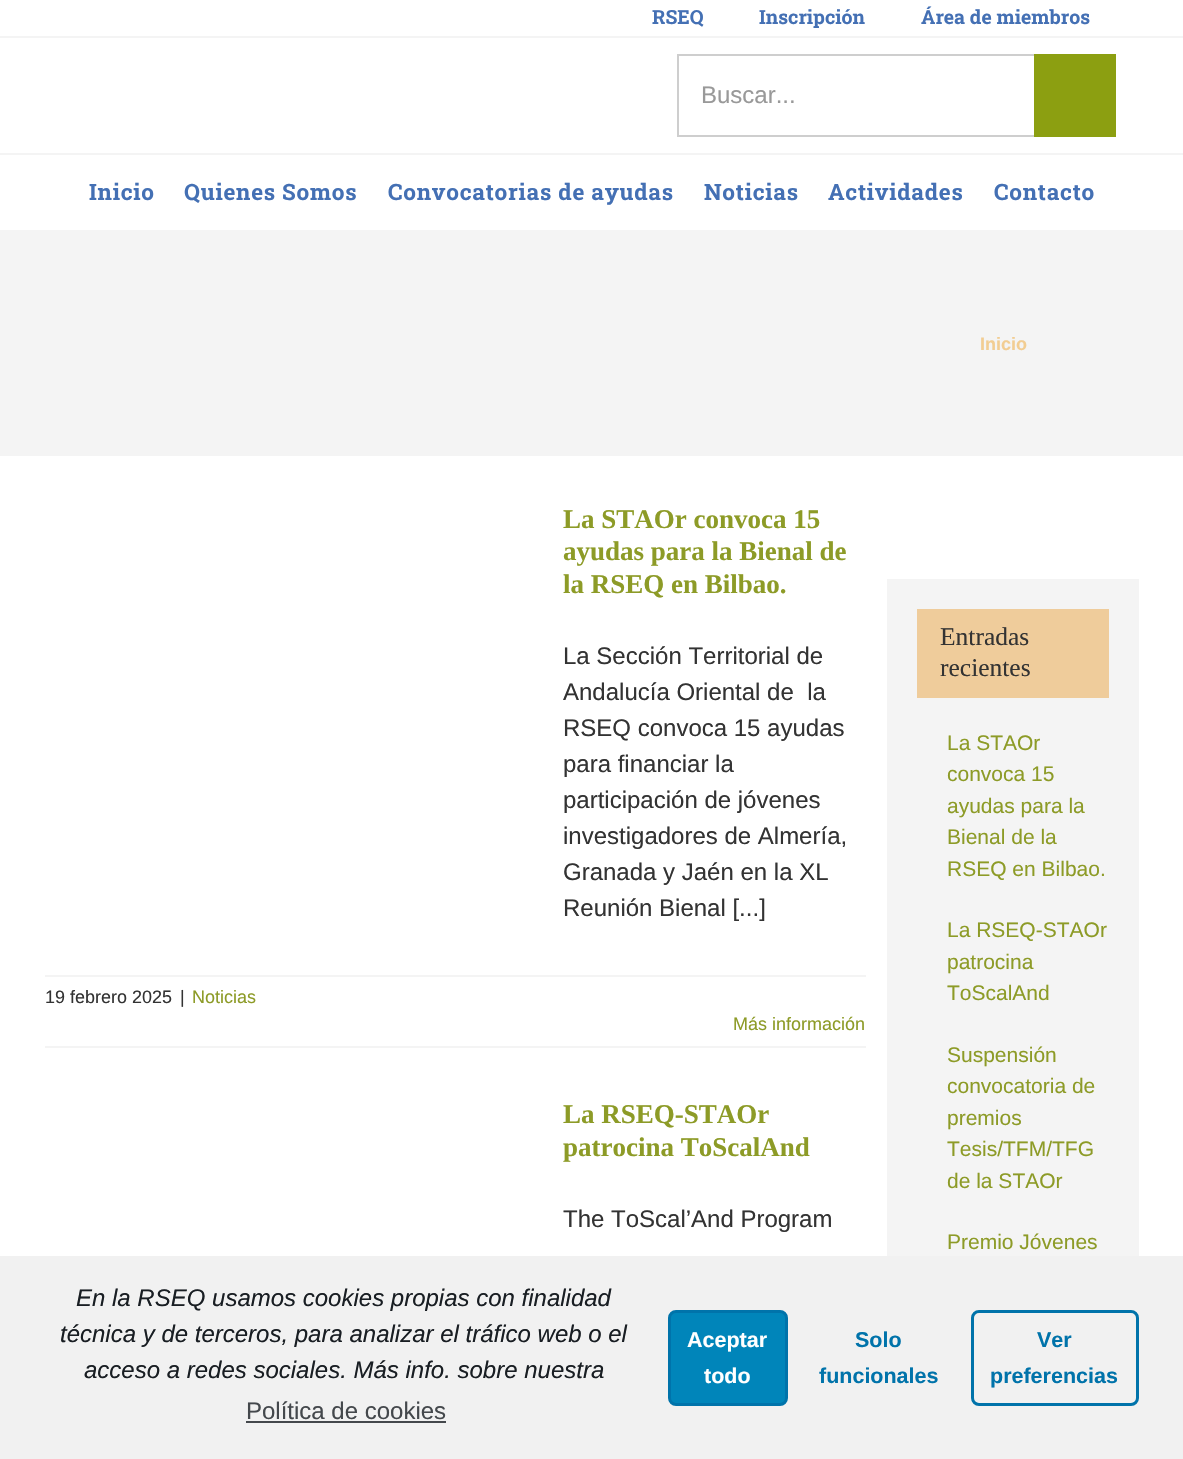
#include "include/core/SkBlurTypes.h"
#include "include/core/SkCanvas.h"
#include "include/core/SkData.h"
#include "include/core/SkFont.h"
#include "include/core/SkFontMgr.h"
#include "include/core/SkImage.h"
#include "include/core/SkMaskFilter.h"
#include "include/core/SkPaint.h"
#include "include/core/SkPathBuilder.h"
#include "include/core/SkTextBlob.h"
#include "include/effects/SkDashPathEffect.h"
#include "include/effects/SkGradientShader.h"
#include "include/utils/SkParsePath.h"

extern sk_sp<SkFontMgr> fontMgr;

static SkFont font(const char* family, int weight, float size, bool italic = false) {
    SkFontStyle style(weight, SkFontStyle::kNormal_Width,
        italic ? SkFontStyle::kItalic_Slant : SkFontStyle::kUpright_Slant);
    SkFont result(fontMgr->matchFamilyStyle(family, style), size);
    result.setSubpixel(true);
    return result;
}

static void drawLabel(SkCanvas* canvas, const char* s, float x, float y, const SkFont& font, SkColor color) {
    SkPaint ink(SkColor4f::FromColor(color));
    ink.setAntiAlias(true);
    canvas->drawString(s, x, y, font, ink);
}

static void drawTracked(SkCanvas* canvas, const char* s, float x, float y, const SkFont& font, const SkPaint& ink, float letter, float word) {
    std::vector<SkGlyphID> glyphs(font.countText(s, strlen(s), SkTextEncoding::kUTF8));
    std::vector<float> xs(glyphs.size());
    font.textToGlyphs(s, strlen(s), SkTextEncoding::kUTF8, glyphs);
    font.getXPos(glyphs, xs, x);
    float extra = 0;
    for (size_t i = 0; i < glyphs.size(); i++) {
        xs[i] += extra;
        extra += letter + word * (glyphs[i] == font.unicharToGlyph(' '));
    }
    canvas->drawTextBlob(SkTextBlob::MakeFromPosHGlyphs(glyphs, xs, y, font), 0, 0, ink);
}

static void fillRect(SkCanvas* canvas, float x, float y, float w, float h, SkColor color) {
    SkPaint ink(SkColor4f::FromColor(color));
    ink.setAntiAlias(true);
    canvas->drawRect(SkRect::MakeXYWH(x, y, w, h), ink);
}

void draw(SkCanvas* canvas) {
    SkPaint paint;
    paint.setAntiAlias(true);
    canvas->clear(0xFFFFFFFF);
    fillRect(canvas, 0, 36, 1183, 2, 0xFFF4F4F4);
    SkFont font1 = font("Roboto Slab", 700, 19.5f);
    drawLabel(canvas, "RSEQ", 652, 24, font1, 0xFF4470B4);
    drawLabel(canvas, "Inscripción", 759, 24, font1, 0xFF4470B4);
    drawLabel(canvas, "Área de miembros", 921, 24, font1, 0xFF4470B4);
    fillRect(canvas, 0, 153, 1183, 2, 0xFFF4F4F4);
    fillRect(canvas, 677, 54, 357, 2, 0xFFCECECE);
    fillRect(canvas, 677, 135, 357, 2, 0xFFCECECE);
    fillRect(canvas, 677, 54, 2, 83, 0xFFCECECE);
    SkFont font2 = font("Liberation Sans", 400, 24);
    drawLabel(canvas, "Buscar...", 701, 103, font2, 0xFF999999);
    fillRect(canvas, 1034, 54, 82, 83, 0xFF8C9F11);
    SkFont font3 = font("Roboto Slab", 700, 22.5f);
    paint.setColor(0xFF4470B4);
    drawTracked(canvas, "Inicio", 89, 200, font3, paint, 0.75f, 0);
    drawTracked(canvas, "Quienes Somos", 184, 200, font3, paint, 0.75f, 0);
    drawTracked(canvas, "Convocatorias de ayudas", 388, 200, font3, paint, 0.75f, 0);
    drawTracked(canvas, "Noticias", 704, 200, font3, paint, 0.75f, 0);
    drawTracked(canvas, "Actividades", 828, 200, font3, paint, 0.75f, 0);
    drawTracked(canvas, "Contacto", 994, 200, font3, paint, 0.75f, 0);
    fillRect(canvas, 0, 230, 1183, 226, 0xFFF4F4F4);
    SkFont font4 = font("Liberation Sans", 700, 18);
    drawLabel(canvas, "Inicio", 980, 350, font4, 0xFFF2CD92);
    SkFont font5 = font("Liberation Serif", 700, 27);
    drawLabel(canvas, "La STAOr convoca 15", 563, 528, font5, 0xFF8D9B27);
    drawLabel(canvas, "ayudas para la Bienal de", 563, 560, font5, 0xFF8D9B27);
    drawLabel(canvas, "la RSEQ en Bilbao.", 563, 593, font5, 0xFF8D9B27);
    drawLabel(canvas, "La Sección Territorial de", 563, 664, font2, 0xFF333333);
    drawLabel(canvas, "Andalucía Oriental de  la", 563, 700, font2, 0xFF333333);
    drawLabel(canvas, "RSEQ convoca 15 ayudas", 563, 736, font2, 0xFF333333);
    drawLabel(canvas, "para financiar la", 563, 772, font2, 0xFF333333);
    drawLabel(canvas, "participación de jóvenes", 563, 808, font2, 0xFF333333);
    drawLabel(canvas, "investigadores de Almería,", 563, 844, font2, 0xFF333333);
    drawLabel(canvas, "Granada y Jaén en la XL", 563, 880, font2, 0xFF333333);
    drawLabel(canvas, "Reunión Bienal [...]", 563, 916, font2, 0xFF333333);
    fillRect(canvas, 45, 975, 821, 2, 0xFFF4F4F4);
    fillRect(canvas, 45, 1046, 821, 2, 0xFFF4F4F4);
    SkFont font6 = font("Liberation Sans", 400, 18);
    drawLabel(canvas, "19 febrero 2025", 45, 1003, font6, 0xFF333333);
    drawLabel(canvas, "|", 180, 1003, font6, 0xFF333333);
    drawLabel(canvas, "Noticias", 192, 1003, font6, 0xFF8D9B27);
    drawLabel(canvas, "Más información", 733, 1030, font6, 0xFF8D9B27);
    drawLabel(canvas, "La RSEQ-STAOr", 563, 1123, font5, 0xFF8D9B27);
    drawLabel(canvas, "patrocina ToScalAnd", 563, 1156, font5, 0xFF8D9B27);
    drawLabel(canvas, "The ToScal’And Program", 563, 1227, font2, 0xFF333333);
    fillRect(canvas, 887, 579, 252, 677, 0xFFF4F4F4);
    fillRect(canvas, 917, 609, 192, 89, 0xFFEFCC9B);
    SkFont font7 = font("Liberation Serif", 400, 25.5f);
    drawLabel(canvas, "Entradas", 940, 645, font7, 0xFF333333);
    drawLabel(canvas, "recientes", 940, 676, font7, 0xFF333333);
    SkFont font8 = font("Liberation Sans", 400, 21);
    drawLabel(canvas, "La STAOr", 947, 750, font8, 0xFF8D9B27);
    drawLabel(canvas, "convoca 15", 947, 781, font8, 0xFF8D9B27);
    drawLabel(canvas, "ayudas para la", 947, 813, font8, 0xFF8D9B27);
    drawLabel(canvas, "Bienal de la", 947, 844, font8, 0xFF8D9B27);
    drawLabel(canvas, "RSEQ en Bilbao.", 947, 876, font8, 0xFF8D9B27);
    drawLabel(canvas, "La RSEQ-STAOr", 947, 937, font8, 0xFF8D9B27);
    drawLabel(canvas, "patrocina", 947, 969, font8, 0xFF8D9B27);
    drawLabel(canvas, "ToScalAnd", 947, 1000, font8, 0xFF8D9B27);
    drawLabel(canvas, "Suspensión", 947, 1062, font8, 0xFF8D9B27);
    drawLabel(canvas, "convocatoria de", 947, 1093, font8, 0xFF8D9B27);
    drawLabel(canvas, "premios", 947, 1125, font8, 0xFF8D9B27);
    drawLabel(canvas, "Tesis/TFM/TFG", 947, 1156, font8, 0xFF8D9B27);
    drawLabel(canvas, "de la STAOr", 947, 1188, font8, 0xFF8D9B27);
    drawLabel(canvas, "Premio Jóvenes", 947, 1249, font8, 0xFF8D9B27);
    fillRect(canvas, 0, 1256, 1183, 203, 0xFFF1F1F1);
    SkFont font9 = font("Liberation Sans", 400, 24, true);
    drawLabel(canvas, "En la RSEQ usamos cookies propias con finalidad", 76, 1306, font9, 0xFF191E23);
    drawLabel(canvas, "técnica y de terceros, para analizar el tráfico web o el", 60, 1342, font9, 0xFF191E23);
    drawLabel(canvas, "acceso a redes sociales. Más info. sobre nuestra", 84, 1378, font9, 0xFF191E23);
    drawLabel(canvas, "Política de cookies", 246, 1419, font2, 0xFF44484C);
    fillRect(canvas, 246, 1421, 200, 2, 0xFF44484C);
    paint.setColor(0xFF0085BA);
    canvas->drawRoundRect(SkRect::MakeXYWH(669.5f, 1311.5f, 117, 93), 6.5f, 6.5f, paint);
    paint.setStroke(true);
    paint.setStrokeWidth(3);
    paint.setColor(0xFF0073AA);
    canvas->drawRoundRect(SkRect::MakeXYWH(669.5f, 1311.5f, 117, 93), 6.5f, 6.5f, paint);
    SkFont font10 = font("Liberation Sans", 700, 21.5f);
    drawLabel(canvas, "Aceptar", 687, 1347, font10, 0xFFFFFFFF);
    drawLabel(canvas, "todo", 704, 1383, font10, 0xFFFFFFFF);
    drawLabel(canvas, "Solo", 855, 1347, font10, 0xFF0073AA);
    drawLabel(canvas, "funcionales", 819, 1383, font10, 0xFF0073AA);
    canvas->drawRoundRect(SkRect::MakeXYWH(972.5f, 1311.5f, 165, 93), 6.5f, 6.5f, paint);
    drawLabel(canvas, "Ver", 1037, 1347, font10, 0xFF0073AA);
    drawLabel(canvas, "preferencias", 990, 1383, font10, 0xFF0073AA);
}
